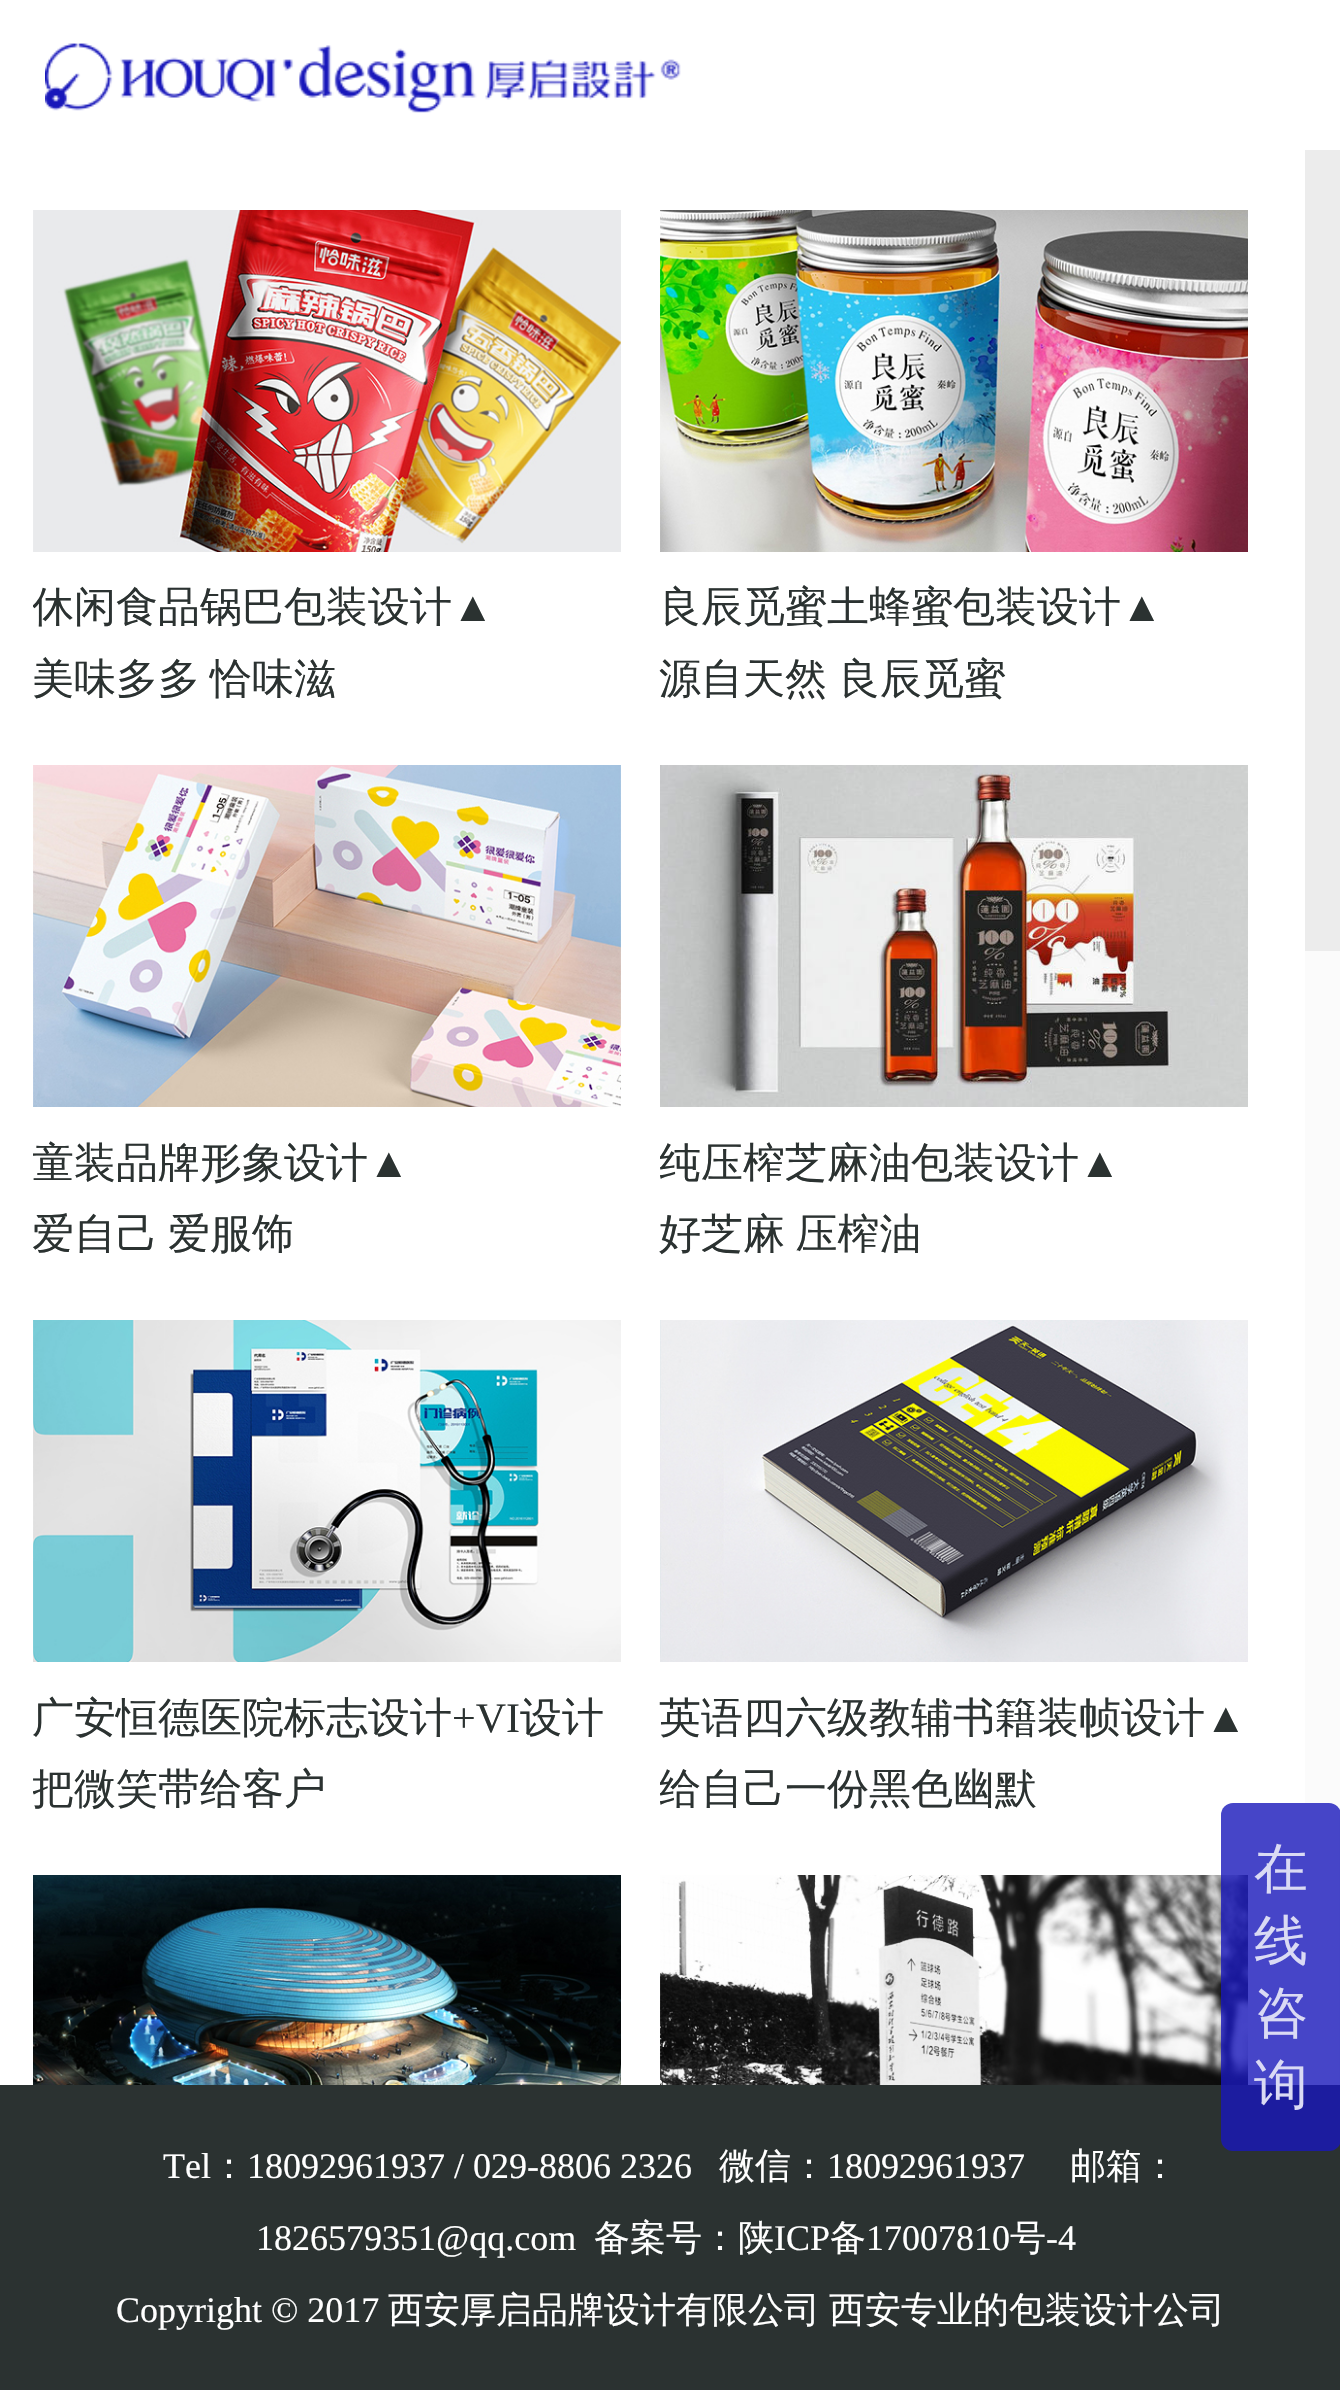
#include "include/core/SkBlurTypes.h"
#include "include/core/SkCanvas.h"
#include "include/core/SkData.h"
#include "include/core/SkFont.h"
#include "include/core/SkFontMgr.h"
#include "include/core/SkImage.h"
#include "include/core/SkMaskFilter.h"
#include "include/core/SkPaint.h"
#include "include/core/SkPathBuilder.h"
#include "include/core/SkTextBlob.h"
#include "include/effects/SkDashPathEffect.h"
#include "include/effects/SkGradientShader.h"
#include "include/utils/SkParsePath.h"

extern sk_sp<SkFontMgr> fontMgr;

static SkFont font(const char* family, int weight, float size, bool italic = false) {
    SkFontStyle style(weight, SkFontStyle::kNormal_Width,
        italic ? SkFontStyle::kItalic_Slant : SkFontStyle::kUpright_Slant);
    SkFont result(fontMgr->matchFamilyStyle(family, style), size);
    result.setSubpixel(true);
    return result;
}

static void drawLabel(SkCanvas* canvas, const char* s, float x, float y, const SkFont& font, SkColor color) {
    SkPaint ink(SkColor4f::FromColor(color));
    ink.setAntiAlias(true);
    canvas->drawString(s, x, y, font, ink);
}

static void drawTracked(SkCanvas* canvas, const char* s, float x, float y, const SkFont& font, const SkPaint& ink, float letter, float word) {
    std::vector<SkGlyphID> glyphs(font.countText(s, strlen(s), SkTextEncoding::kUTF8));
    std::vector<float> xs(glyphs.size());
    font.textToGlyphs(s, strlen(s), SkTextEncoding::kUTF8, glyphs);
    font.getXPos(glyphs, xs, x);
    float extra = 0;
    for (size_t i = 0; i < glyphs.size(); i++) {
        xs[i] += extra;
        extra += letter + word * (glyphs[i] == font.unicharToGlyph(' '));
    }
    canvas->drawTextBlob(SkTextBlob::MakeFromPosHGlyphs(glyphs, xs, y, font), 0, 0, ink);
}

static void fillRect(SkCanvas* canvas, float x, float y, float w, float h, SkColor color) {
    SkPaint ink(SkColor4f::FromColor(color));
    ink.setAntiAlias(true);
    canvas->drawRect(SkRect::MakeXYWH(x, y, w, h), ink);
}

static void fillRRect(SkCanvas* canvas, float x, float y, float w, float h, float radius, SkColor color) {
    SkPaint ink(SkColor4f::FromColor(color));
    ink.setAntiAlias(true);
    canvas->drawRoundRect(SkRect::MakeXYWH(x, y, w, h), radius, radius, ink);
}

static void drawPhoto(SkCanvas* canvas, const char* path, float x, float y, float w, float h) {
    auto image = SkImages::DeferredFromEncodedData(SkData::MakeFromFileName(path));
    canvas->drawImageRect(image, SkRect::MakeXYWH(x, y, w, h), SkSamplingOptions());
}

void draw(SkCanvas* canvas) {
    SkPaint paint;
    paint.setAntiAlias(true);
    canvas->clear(0xFFFFFFFF);
    drawPhoto(canvas, "assets/img1.png", 45, 43, 636, 70);
    drawPhoto(canvas, "assets/img2.png", 33, 210, 588, 342);
    canvas->save();
    canvas->clipRect(SkRect::MakeXYWH(33, 552, 588, 93));
    SkFont font1 = font("WenQuanYi Zen Hei", 500, 42);
    drawLabel(canvas, "休闲食品锅巴包装设计", 32, 621, font1, 0xFF2B3231);
    canvas->restore();
    SkFont font2 = font("Liberation Serif", 400, 42);
    drawLabel(canvas, "▲", 452, 621, font2, 0xFF2B3231);
    drawLabel(canvas, "美味多多", 32, 693, font1, 0xFF2B3231);
    drawLabel(canvas, "恰味滋", 210, 693, font1, 0xFF2B3231);
    drawPhoto(canvas, "assets/img3.png", 660, 210, 588, 342);
    drawLabel(canvas, "良辰觅蜜土蜂蜜包装设计", 659, 621, font1, 0xFF2B3231);
    drawLabel(canvas, "▲", 1121, 621, font2, 0xFF2B3231);
    drawLabel(canvas, "源自天然", 659, 693, font1, 0xFF2B3231);
    drawLabel(canvas, "良辰觅蜜", 838, 693, font1, 0xFF2B3231);
    drawPhoto(canvas, "assets/img4.png", 33, 765, 588, 342);
    canvas->save();
    canvas->clipRect(SkRect::MakeXYWH(33, 1107, 588, 93));
    drawLabel(canvas, "童装品牌形象设计", 32, 1177, font1, 0xFF2B3231);
    canvas->restore();
    drawLabel(canvas, "▲", 368, 1177, font2, 0xFF2B3231);
    drawLabel(canvas, "爱自己", 32, 1248, font1, 0xFF2B3231);
    drawLabel(canvas, "爱服饰", 168, 1248, font1, 0xFF2B3231);
    drawPhoto(canvas, "assets/img5.png", 660, 765, 588, 342);
    canvas->save();
    canvas->clipRect(SkRect::MakeXYWH(660, 1107, 588, 93));
    drawLabel(canvas, "纯压榨芝麻油包装设计", 659, 1177, font1, 0xFF2B3231);
    canvas->restore();
    drawLabel(canvas, "▲", 1079, 1177, font2, 0xFF2B3231);
    paint.setColor(0xFF2B3231);
    drawTracked(canvas, "好芝麻 压榨油", 659, 1248, font1, paint, 0, -2);
    drawPhoto(canvas, "assets/img6.png", 33, 1320, 588, 342);
    drawLabel(canvas, "广安恒德医院标志设计", 32, 1732, font1, 0xFF2B3231);
    drawLabel(canvas, "+VI", 452, 1732, font2, 0xFF2B3231);
    drawLabel(canvas, "设计", 520, 1732, font1, 0xFF2B3231);
    canvas->save();
    canvas->clipRect(SkRect::MakeXYWH(33, 1755, 588, 72));
    drawLabel(canvas, "把微笑带给客户", 32, 1803, font1, 0xFF2B3231);
    canvas->restore();
    drawPhoto(canvas, "assets/img7.png", 660, 1320, 588, 342);
    drawLabel(canvas, "英语四六级教辅书籍装帧设计", 659, 1732, font1, 0xFF2B3231);
    drawLabel(canvas, "▲", 1205, 1732, font2, 0xFF2B3231);
    canvas->save();
    canvas->clipRect(SkRect::MakeXYWH(660, 1755, 588, 72));
    drawLabel(canvas, "给自己一份黑色幽默", 659, 1803, font1, 0xFF2B3231);
    canvas->restore();
    drawPhoto(canvas, "assets/img8.png", 33, 1875, 588, 210);
    drawPhoto(canvas, "assets/img9.png", 660, 1875, 588, 210);
    fillRect(canvas, 1305, 150, 35, 801, 0xFFECECEC);
    fillRect(canvas, 1305, 951, 35, 1134, 0xFFFBFBFB);
    fillRect(canvas, 0, 2085, 1340, 305, 0xFF2B3231);
    SkFont font3 = font("Liberation Serif", 400, 36);
    drawLabel(canvas, "Tel", 163, 2178, font3, 0xFFFFFFFF);
    SkFont font4 = font("WenQuanYi Zen Hei", 500, 36);
    drawLabel(canvas, "：", 211, 2178, font4, 0xFFFFFFFF);
    drawLabel(canvas, "18092961937 / 029-8806 2326", 247, 2178, font3, 0xFFFFFFFF);
    drawLabel(canvas, "微信：", 719, 2178, font4, 0xFFFFFFFF);
    drawLabel(canvas, "18092961937", 827, 2178, font3, 0xFFFFFFFF);
    drawLabel(canvas, "邮箱：", 1070, 2178, font4, 0xFFFFFFFF);
    drawLabel(canvas, "1826579351@qq.com", 256, 2250, font3, 0xFFFFFFFF);
    drawLabel(canvas, "备案号：陕", 594, 2250, font4, 0xFFFFFFFF);
    drawLabel(canvas, "ICP", 774, 2250, font3, 0xFFFFFFFF);
    drawLabel(canvas, "备", 830, 2250, font4, 0xFFFFFFFF);
    drawLabel(canvas, "17007810", 866, 2250, font3, 0xFFFFFFFF);
    drawLabel(canvas, "号", 1010, 2250, font4, 0xFFFFFFFF);
    drawLabel(canvas, "-4", 1046, 2250, font3, 0xFFFFFFFF);
    drawLabel(canvas, "Copyright © 2017", 116, 2322, font3, 0xFFFFFFFF);
    drawLabel(canvas, "西安厚启品牌设计有限公司", 388, 2322, font4, 0xFFFFFFFF);
    drawLabel(canvas, "西安专业的包装设计公司", 829, 2322, font4, 0xFFFFFFFF);
    fillRRect(canvas, 1221, 1803, 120, 348, 12, 0xCC1817BA);
    SkFont font5 = font("WenQuanYi Zen Hei", 500, 54);
    drawLabel(canvas, "在", 1254, 1887, font5, 0xFFDADAF4);
    drawLabel(canvas, "线", 1254, 1959, font5, 0xFFDADAF4);
    drawLabel(canvas, "咨", 1254, 2031, font5, 0xFFDADAF4);
    drawLabel(canvas, "询", 1254, 2103, font5, 0xFFDADAF4);
}
